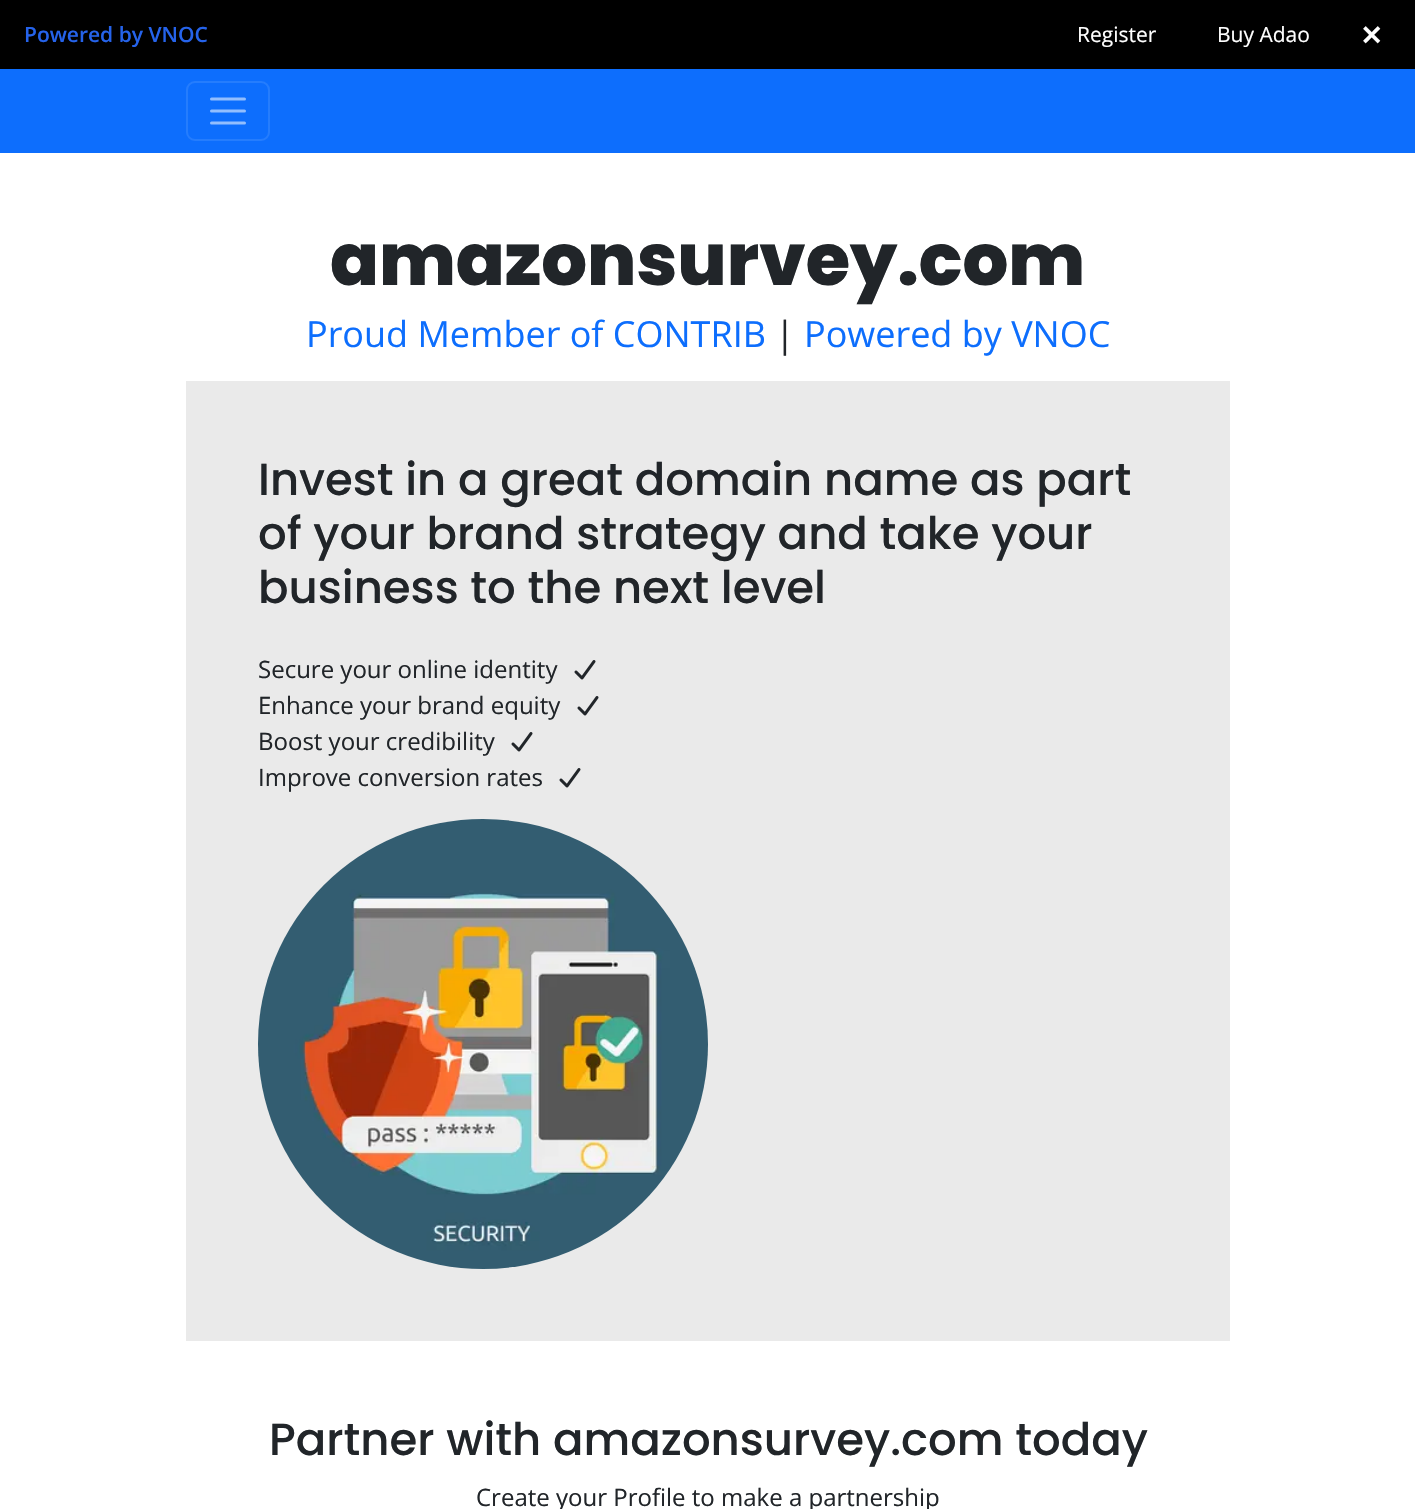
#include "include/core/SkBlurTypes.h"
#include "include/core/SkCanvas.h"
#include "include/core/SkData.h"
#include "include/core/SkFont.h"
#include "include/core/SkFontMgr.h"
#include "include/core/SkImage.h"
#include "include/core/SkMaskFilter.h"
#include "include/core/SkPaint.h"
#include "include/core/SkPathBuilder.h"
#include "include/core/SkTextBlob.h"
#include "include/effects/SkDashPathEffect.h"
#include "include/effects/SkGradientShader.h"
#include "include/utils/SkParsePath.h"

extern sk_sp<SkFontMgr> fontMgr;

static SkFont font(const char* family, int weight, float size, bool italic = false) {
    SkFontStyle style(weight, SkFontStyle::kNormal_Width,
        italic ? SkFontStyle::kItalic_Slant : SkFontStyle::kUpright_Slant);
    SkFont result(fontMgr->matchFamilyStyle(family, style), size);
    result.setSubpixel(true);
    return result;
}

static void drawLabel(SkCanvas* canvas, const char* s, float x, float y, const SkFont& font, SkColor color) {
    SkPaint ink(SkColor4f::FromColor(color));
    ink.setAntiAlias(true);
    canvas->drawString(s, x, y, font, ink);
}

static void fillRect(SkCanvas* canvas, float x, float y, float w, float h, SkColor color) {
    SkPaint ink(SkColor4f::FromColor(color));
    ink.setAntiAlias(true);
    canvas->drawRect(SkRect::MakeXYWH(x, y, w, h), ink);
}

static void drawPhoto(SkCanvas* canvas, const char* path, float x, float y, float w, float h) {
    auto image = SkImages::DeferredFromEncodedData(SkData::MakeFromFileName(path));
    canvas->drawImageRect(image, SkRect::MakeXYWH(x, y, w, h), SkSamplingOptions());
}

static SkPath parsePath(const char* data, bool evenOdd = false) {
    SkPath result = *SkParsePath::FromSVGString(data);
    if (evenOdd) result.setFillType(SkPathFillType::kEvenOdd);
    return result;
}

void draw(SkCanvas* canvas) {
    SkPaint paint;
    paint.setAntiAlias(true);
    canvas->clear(0xFFFFFFFF);
    fillRect(canvas, 0, 0, 1415, 69, 0xFF000000);
    SkFont font1 = font("Open Sans", 600, 21);
    drawLabel(canvas, "Powered by VNOC", 24, 42, font1, 0xFF2563EB);
    SkFont font2 = font("Open Sans", 400, 21);
    drawLabel(canvas, "Register", 1077, 42, font2, 0xFFFFFFFF);
    drawLabel(canvas, "Buy Adao", 1217, 42, font2, 0xFFFFFFFF);
    SkFont font3 = font("DejaVu Sans", 700, 27);
    drawLabel(canvas, "✕", 1360, 45, font3, 0xFFFFFFFF);
    fillRect(canvas, 0, 69, 1415, 84, 0xFF0D6EFD);
    paint.setStroke(true);
    paint.setStrokeWidth(2);
    paint.setColor(0xFF257DFD);
    canvas->drawRoundRect(SkRect::MakeXYWH(187, 82, 82, 58), 8, 8, paint);
    paint.setStrokeWidth(3);
    paint.setStrokeCap(SkPaint::kRound_Cap);
    paint.setColor(0xFF92BEFE);
    canvas->drawPath(parsePath("M211.5 99H244.5M211.5 111H244.5M211.5 123H244.5"), paint);
    SkFont font4 = font("Poppins", 800, 72);
    drawLabel(canvas, "amazonsurvey.com", 330, 285, font4, 0xFF212529);
    SkFont font5 = font("Open Sans", 400, 36);
    drawLabel(canvas, "Proud Member of CONTRIB", 306, 347, font5, 0xFF0D6EFD);
    drawLabel(canvas, "|", 775, 347, font5, 0xFF212529);
    drawLabel(canvas, "Powered by VNOC", 804, 347, font5, 0xFF0D6EFD);
    fillRect(canvas, 186, 381, 1044, 960, 0xFFEAEAEA);
    SkFont font6 = font("Poppins", 500, 45);
    drawLabel(canvas, "Invest in a great domain name as part", 258, 495, font6, 0xFF212529);
    drawLabel(canvas, "of your brand strategy and take your", 258, 549, font6, 0xFF212529);
    drawLabel(canvas, "business to the next level", 258, 603, font6, 0xFF212529);
    SkFont font7 = font("Open Sans", 400, 24);
    drawLabel(canvas, "Secure your online identity", 258, 678, font7, 0xFF212529);
    drawPhoto(canvas, "assets/img1.png", 574, 660, 22, 20);
    drawLabel(canvas, "Enhance your brand equity", 258, 714, font7, 0xFF212529);
    drawPhoto(canvas, "assets/img1.png", 577, 696, 22, 20);
    drawLabel(canvas, "Boost your credibility", 258, 750, font7, 0xFF212529);
    drawPhoto(canvas, "assets/img1.png", 511, 732, 22, 20);
    drawLabel(canvas, "Improve conversion rates", 258, 786, font7, 0xFF212529);
    drawPhoto(canvas, "assets/img1.png", 559, 768, 22, 20);
    drawPhoto(canvas, "assets/img2.png", 258, 819, 450, 450);
    drawLabel(canvas, "Partner with amazonsurvey.com today", 269, 1455, font6, 0xFF212529);
    drawLabel(canvas, "Create your Profile to make a partnership", 476, 1506, font7, 0xFF212529);
}
